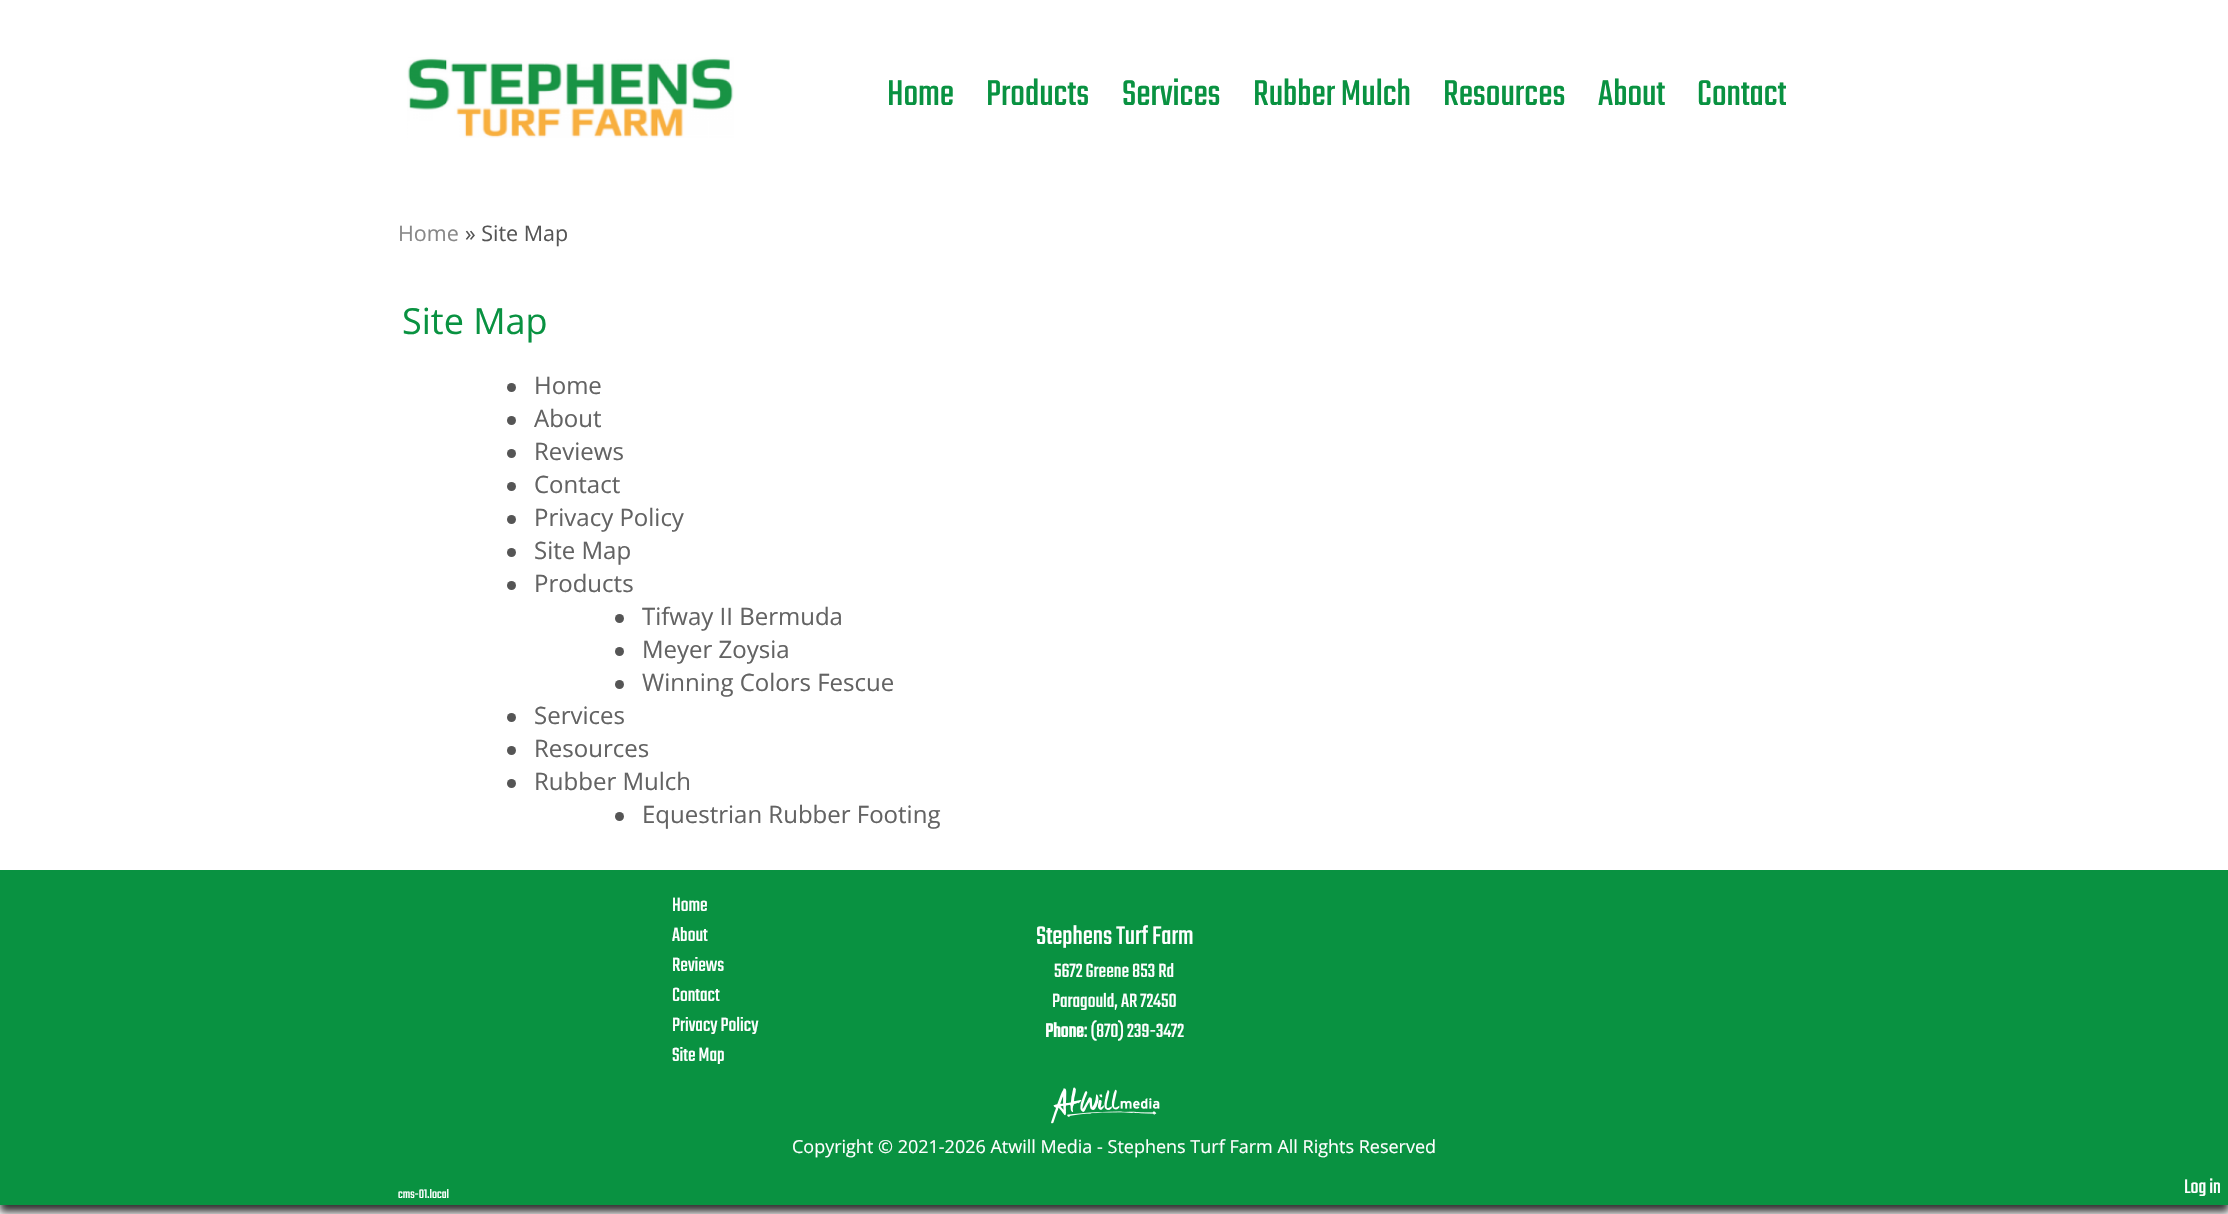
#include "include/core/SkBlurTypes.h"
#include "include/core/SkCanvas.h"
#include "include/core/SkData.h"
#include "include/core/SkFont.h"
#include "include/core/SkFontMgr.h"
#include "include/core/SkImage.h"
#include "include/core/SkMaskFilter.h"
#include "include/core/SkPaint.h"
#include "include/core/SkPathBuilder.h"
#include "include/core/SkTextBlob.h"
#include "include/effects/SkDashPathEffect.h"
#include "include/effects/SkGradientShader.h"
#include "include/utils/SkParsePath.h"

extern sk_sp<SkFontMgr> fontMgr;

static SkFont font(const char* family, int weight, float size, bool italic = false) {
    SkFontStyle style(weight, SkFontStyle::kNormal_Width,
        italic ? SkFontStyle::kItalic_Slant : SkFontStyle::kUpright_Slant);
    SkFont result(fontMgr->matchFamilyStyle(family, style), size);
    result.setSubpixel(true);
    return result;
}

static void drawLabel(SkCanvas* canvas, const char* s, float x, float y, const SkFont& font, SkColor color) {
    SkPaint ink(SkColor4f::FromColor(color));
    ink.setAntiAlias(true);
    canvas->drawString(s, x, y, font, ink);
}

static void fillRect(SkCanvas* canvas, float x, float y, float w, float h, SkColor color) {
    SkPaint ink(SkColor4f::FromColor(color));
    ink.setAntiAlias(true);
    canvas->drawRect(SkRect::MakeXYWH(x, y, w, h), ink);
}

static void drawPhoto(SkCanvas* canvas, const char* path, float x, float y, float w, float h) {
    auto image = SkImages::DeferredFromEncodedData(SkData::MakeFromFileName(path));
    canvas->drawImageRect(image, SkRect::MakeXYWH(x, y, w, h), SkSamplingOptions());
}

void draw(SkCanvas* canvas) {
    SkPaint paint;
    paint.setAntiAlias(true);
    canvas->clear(0xFFFFFFFF);
    canvas->save();
    canvas->clipRect(SkRect::MakeXYWH(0, 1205, 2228, 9));
    paint.setColor(0xFF333333);
    paint.setMaskFilter(SkMaskFilter::MakeBlur(kNormal_SkBlurStyle, 4));
    canvas->drawRect(SkRect::MakeXYWH(0, 8, 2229, 1204), paint);
    paint.setMaskFilter(nullptr);
    canvas->restore();
    drawPhoto(canvas, "assets/img1.png", 407, 57, 327, 81);
    SkFont font1 = font("Teko", 300, 39.5f);
    drawLabel(canvas, "Home", 887, 105, font1, 0xFF099241);
    drawLabel(canvas, "Products", 986, 105, font1, 0xFF099241);
    drawLabel(canvas, "Services", 1122, 105, font1, 0xFF099241);
    drawLabel(canvas, "Rubber Mulch", 1253, 105, font1, 0xFF099241);
    drawLabel(canvas, "Resources", 1443, 105, font1, 0xFF099241);
    drawLabel(canvas, "About", 1598, 105, font1, 0xFF099241);
    drawLabel(canvas, "Contact", 1697, 105, font1, 0xFF099241);
    SkFont font2 = font("Open Sans", 400, 21.5f);
    drawLabel(canvas, "Home", 398, 241, font2, 0xFF888888);
    drawLabel(canvas, "» Site Map", 465, 241, font2, 0xFF555555);
    SkFont font3 = font("Open Sans", 400, 36);
    drawLabel(canvas, "Site Map", 402, 334, font3, 0xFF099241);
    paint.setColor(0xFF555555);
    canvas->drawCircle(511.5f, 387.5f, 4.5f, paint);
    SkFont font4 = font("Open Sans", 400, 24);
    drawLabel(canvas, "Home", 534, 394, font4, 0xFF636363);
    canvas->drawCircle(511.5f, 420.5f, 4.5f, paint);
    drawLabel(canvas, "About", 534, 427, font4, 0xFF636363);
    canvas->drawCircle(511.5f, 453.5f, 4.5f, paint);
    drawLabel(canvas, "Reviews", 534, 460, font4, 0xFF636363);
    canvas->drawCircle(511.5f, 486.5f, 4.5f, paint);
    drawLabel(canvas, "Contact", 534, 493, font4, 0xFF636363);
    canvas->drawCircle(511.5f, 519.5f, 4.5f, paint);
    drawLabel(canvas, "Privacy Policy", 534, 526, font4, 0xFF636363);
    canvas->drawCircle(511.5f, 552.5f, 4.5f, paint);
    drawLabel(canvas, "Site Map", 534, 559, font4, 0xFF636363);
    canvas->drawCircle(511.5f, 585.5f, 4.5f, paint);
    drawLabel(canvas, "Products", 534, 592, font4, 0xFF636363);
    canvas->drawCircle(619.5f, 618.5f, 4.5f, paint);
    drawLabel(canvas, "Tifway II Bermuda", 642, 625, font4, 0xFF636363);
    canvas->drawCircle(619.5f, 651.5f, 4.5f, paint);
    drawLabel(canvas, "Meyer Zoysia", 642, 658, font4, 0xFF636363);
    canvas->drawCircle(619.5f, 684.5f, 4.5f, paint);
    drawLabel(canvas, "Winning Colors Fescue", 642, 691, font4, 0xFF636363);
    canvas->drawCircle(511.5f, 717.5f, 4.5f, paint);
    drawLabel(canvas, "Services", 534, 724, font4, 0xFF636363);
    canvas->drawCircle(511.5f, 750.5f, 4.5f, paint);
    drawLabel(canvas, "Resources", 534, 757, font4, 0xFF636363);
    canvas->drawCircle(511.5f, 783.5f, 4.5f, paint);
    drawLabel(canvas, "Rubber Mulch", 534, 790, font4, 0xFF636363);
    canvas->drawCircle(619.5f, 816.5f, 4.5f, paint);
    drawLabel(canvas, "Equestrian Rubber Footing", 642, 823, font4, 0xFF636363);
    fillRect(canvas, 0, 870, 2228, 335, 0xFF099241);
    SkFont font5 = font("Teko", 300, 21);
    drawLabel(canvas, "Home", 672, 911, font5, 0xFFFFFFFF);
    drawLabel(canvas, "About", 672, 941, font5, 0xFFFFFFFF);
    drawLabel(canvas, "Reviews", 672, 971, font5, 0xFFFFFFFF);
    drawLabel(canvas, "Contact", 672, 1001, font5, 0xFFFFFFFF);
    drawLabel(canvas, "Privacy Policy", 672, 1031, font5, 0xFFFFFFFF);
    drawLabel(canvas, "Site Map", 672, 1061, font5, 0xFFFFFFFF);
    SkFont font6 = font("Teko", 300, 28);
    drawLabel(canvas, "Stephens Turf Farm", 1036, 944, font6, 0xFFFFFFFF);
    drawLabel(canvas, "5672 Greene 853 Rd", 1054, 977, font5, 0xFFFFFFFF);
    drawLabel(canvas, "Paragould, AR 72450", 1052, 1007, font5, 0xFFFFFFFF);
    SkFont font7 = font("Teko", 700, 21);
    drawLabel(canvas, "Phone", 1045, 1037, font7, 0xFFFFFFFF);
    drawLabel(canvas, ": (870) 239-3472", 1084, 1037, font5, 0xFFFFFFFF);
    drawPhoto(canvas, "assets/img2.png", 1051, 1087, 109, 37);
    SkFont font8 = font("Open Sans", 400, 18);
    drawLabel(canvas, "Copyright © 2021-2026 Atwill Media - Stephens Turf Farm All Rights Reserved", 792, 1153, font8, 0xFFFFFFFF);
    SkFont font9 = font("Teko", 300, 13.5f);
    drawLabel(canvas, "cms-01.local", 398, 1198, font9, 0xFFFFFFFF);
    SkFont font10 = font("Teko", 300, 21.5f);
    drawLabel(canvas, "Log in", 2184, 1193, font10, 0xFFFFFFFF);
}
